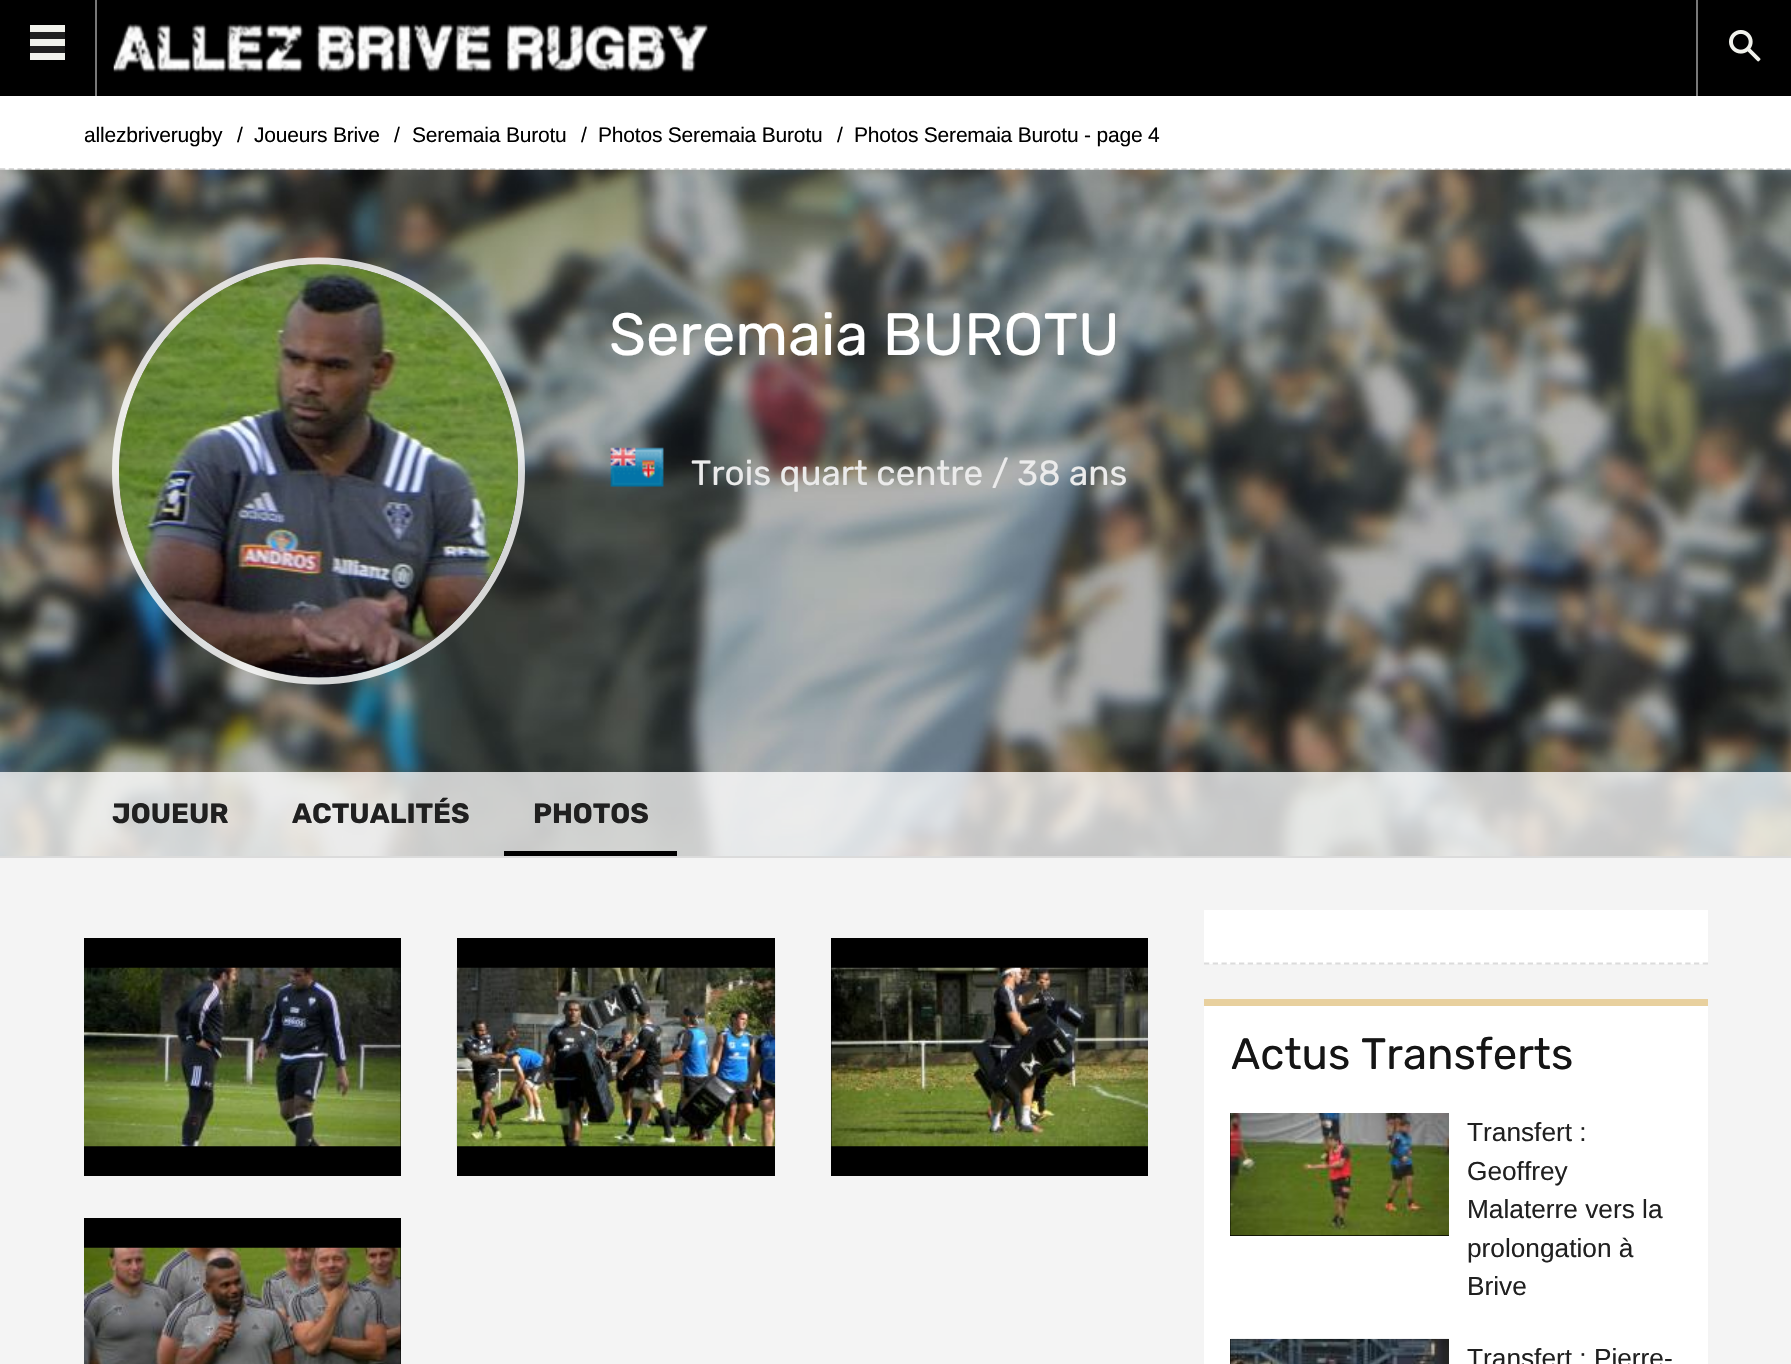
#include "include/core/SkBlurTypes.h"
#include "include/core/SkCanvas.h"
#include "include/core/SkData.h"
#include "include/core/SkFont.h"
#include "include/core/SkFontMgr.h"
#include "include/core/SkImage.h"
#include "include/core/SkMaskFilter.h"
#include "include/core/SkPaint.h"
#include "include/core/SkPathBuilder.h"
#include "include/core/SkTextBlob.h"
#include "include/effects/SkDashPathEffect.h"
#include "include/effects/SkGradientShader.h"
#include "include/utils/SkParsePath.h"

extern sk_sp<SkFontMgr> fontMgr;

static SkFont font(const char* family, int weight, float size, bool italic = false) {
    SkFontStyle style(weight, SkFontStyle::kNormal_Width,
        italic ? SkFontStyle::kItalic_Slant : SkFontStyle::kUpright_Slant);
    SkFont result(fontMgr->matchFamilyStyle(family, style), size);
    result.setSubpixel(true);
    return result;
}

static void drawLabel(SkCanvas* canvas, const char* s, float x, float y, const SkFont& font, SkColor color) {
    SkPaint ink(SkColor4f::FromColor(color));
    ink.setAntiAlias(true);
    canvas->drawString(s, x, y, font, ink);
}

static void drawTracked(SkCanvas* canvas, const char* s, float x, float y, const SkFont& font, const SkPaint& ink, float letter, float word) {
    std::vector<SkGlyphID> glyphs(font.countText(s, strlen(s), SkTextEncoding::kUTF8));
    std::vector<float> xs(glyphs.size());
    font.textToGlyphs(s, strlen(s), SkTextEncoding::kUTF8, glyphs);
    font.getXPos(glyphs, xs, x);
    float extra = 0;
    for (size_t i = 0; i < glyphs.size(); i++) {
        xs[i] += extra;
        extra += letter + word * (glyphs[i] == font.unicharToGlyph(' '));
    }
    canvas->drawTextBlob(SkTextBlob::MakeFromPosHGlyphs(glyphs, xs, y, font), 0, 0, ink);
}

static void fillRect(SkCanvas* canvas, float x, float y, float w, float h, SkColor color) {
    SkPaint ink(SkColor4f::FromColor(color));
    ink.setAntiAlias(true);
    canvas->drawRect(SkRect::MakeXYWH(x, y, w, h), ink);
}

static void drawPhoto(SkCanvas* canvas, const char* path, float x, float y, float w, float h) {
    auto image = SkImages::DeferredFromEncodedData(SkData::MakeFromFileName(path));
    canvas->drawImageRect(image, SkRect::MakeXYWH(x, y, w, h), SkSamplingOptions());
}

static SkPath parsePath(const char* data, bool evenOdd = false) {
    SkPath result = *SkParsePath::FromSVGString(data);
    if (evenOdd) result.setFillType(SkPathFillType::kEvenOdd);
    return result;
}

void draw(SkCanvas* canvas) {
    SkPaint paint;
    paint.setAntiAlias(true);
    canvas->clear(0xFFF4F4F4);
    fillRect(canvas, 0, 0, 1791, 96, 0xFF000000);
    fillRect(canvas, 95, 0, 2, 96, 0xFF787878);
    fillRect(canvas, 30, 25, 35, 35, 0xFFF1F2EC);
    fillRect(canvas, 30, 32, 35, 7, 0xFF202020);
    fillRect(canvas, 30, 46, 35, 7, 0xFF202020);
    drawPhoto(canvas, "assets/img1.png", 113, 24, 595, 49);
    fillRect(canvas, 1696, 0, 2, 96, 0xFF787878);
    drawPhoto(canvas, "assets/img2.png", 1729, 30, 32, 32);
    fillRect(canvas, 0, 96, 1791, 74, 0xFFFFFFFF);
    paint.setStroke(true);
    paint.setStrokeWidth(1.8f);
    paint.setColor(0xFFDBDBDB);
    paint.setPathEffect(SkDashPathEffect::Make({{5.25f, 3.5f}}, 0));
    canvas->drawPath(parsePath("M0 169H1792"), paint);
    paint.setPathEffect(nullptr);
    SkFont font1 = font("Liberation Sans", 400, 21);
    paint.setStroke(false);
    paint.setColor(0xFF000000);
    drawTracked(canvas, "allezbriverugby", 84, 142, font1, paint, -0.2f, 0);
    drawTracked(canvas, "/", 237, 142, font1, paint, -0.2f, 0);
    drawTracked(canvas, "Joueurs Brive", 254, 142, font1, paint, -0.2f, 0);
    drawTracked(canvas, "/", 394, 142, font1, paint, -0.2f, 0);
    drawTracked(canvas, "Seremaia Burotu", 412, 142, font1, paint, -0.2f, 0);
    drawTracked(canvas, "/", 581, 142, font1, paint, -0.2f, 0);
    drawTracked(canvas, "Photos Seremaia Burotu", 598, 142, font1, paint, -0.2f, 0);
    drawTracked(canvas, "/", 837, 142, font1, paint, -0.2f, 0);
    drawTracked(canvas, "Photos Seremaia Burotu - page 4", 854, 142, font1, paint, -0.2f, 0);
    drawPhoto(canvas, "assets/img3.png", 0, 169, 1791, 687);
    paint.setStroke(true);
    paint.setStrokeWidth(7);
    paint.setColor(0xCCFFFFFF);
    canvas->drawPath(parsePath("M318.5 261C430.5 261 521.5 355 521.5 471C521.5 586.5 430.5 681 318.5 681C206.5 681 115.5 586.5 115.5 471C115.5 355 206.5 261 318.5 261Z"), paint);
    drawPhoto(canvas, "assets/img4.png", 119, 264, 399, 414);
    SkFont font2 = font("Rubik", 400, 59.5f);
    drawLabel(canvas, "Seremaia BUROTU", 609, 355, font2, 0xFFFFFFFF);
    drawPhoto(canvas, "assets/img5.png", 610, 447, 54, 40);
    SkFont font3 = font("Rubik", 400, 35);
    drawLabel(canvas, "Trois quart centre / 38 ans", 691, 485, font3, 0xFFEBEBEB);
    fillRect(canvas, 0, 772, 1791, 84, 0xBFFFFFFF);
    fillRect(canvas, 0, 856, 1791, 2, 0xFFDBDBDB);
    SkFont font4 = font("Rubik", 700, 28);
    drawLabel(canvas, "JOUEUR", 112, 823, font4, 0xFF202020);
    drawLabel(canvas, "ACTUALITÉS", 292, 823, font4, 0xFF202020);
    fillRect(canvas, 504, 851, 173, 5, 0xFF000000);
    drawLabel(canvas, "PHOTOS", 533, 823, font4, 0xFF202020);
    fillRect(canvas, 84, 938, 317, 238, 0xFF000000);
    drawPhoto(canvas, "assets/img6.png", 84, 967, 317, 180);
    fillRect(canvas, 457, 938, 318, 238, 0xFF000000);
    drawPhoto(canvas, "assets/img7.png", 456, 967, 320, 180);
    fillRect(canvas, 831, 938, 317, 238, 0xFF000000);
    drawPhoto(canvas, "assets/img8.png", 831, 967, 317, 180);
    fillRect(canvas, 84, 1218, 317, 146, 0xFF000000);
    drawPhoto(canvas, "assets/img9.png", 84, 1247, 317, 117);
    fillRect(canvas, 1204, 910, 504, 54, 0xFFFFFFFF);
    paint.setStrokeWidth(1.8f);
    paint.setColor(0xFFDBDBDB);
    paint.setPathEffect(SkDashPathEffect::Make({{5.25f, 3.5f}}, 0));
    canvas->drawPath(parsePath("M1204 963.5H1708"), paint);
    paint.setPathEffect(nullptr);
    fillRect(canvas, 1204, 1006, 504, 358, 0xFFFFFFFF);
    fillRect(canvas, 1204, 999, 504, 7, 0xFFE8D09E);
    SkFont font5 = font("Rubik", 400, 43.75f);
    drawLabel(canvas, "Actus Transferts", 1231, 1069, font5, 0xFF151515);
    fillRect(canvas, 1230, 1113, 219, 123, 0xFF000000);
    drawPhoto(canvas, "assets/img10.png", 1230, 1113, 219, 123);
    SkFont font6 = font("Liberation Sans", 400, 26.25f);
    drawLabel(canvas, "Transfert :", 1467, 1141, font6, 0xFF202020);
    drawLabel(canvas, "Geoffrey", 1467, 1180, font6, 0xFF202020);
    drawLabel(canvas, "Malaterre vers la", 1467, 1218, font6, 0xFF202020);
    drawLabel(canvas, "prolongation à", 1467, 1257, font6, 0xFF202020);
    drawLabel(canvas, "Brive", 1467, 1295, font6, 0xFF202020);
    fillRect(canvas, 1230, 1339, 1, 25, 0xFF000000);
    drawPhoto(canvas, "assets/img11.png", 1230, 1338, 219, 26);
    drawLabel(canvas, "Transfert : Pierre-", 1467, 1367, font6, 0xFF202020);
}
